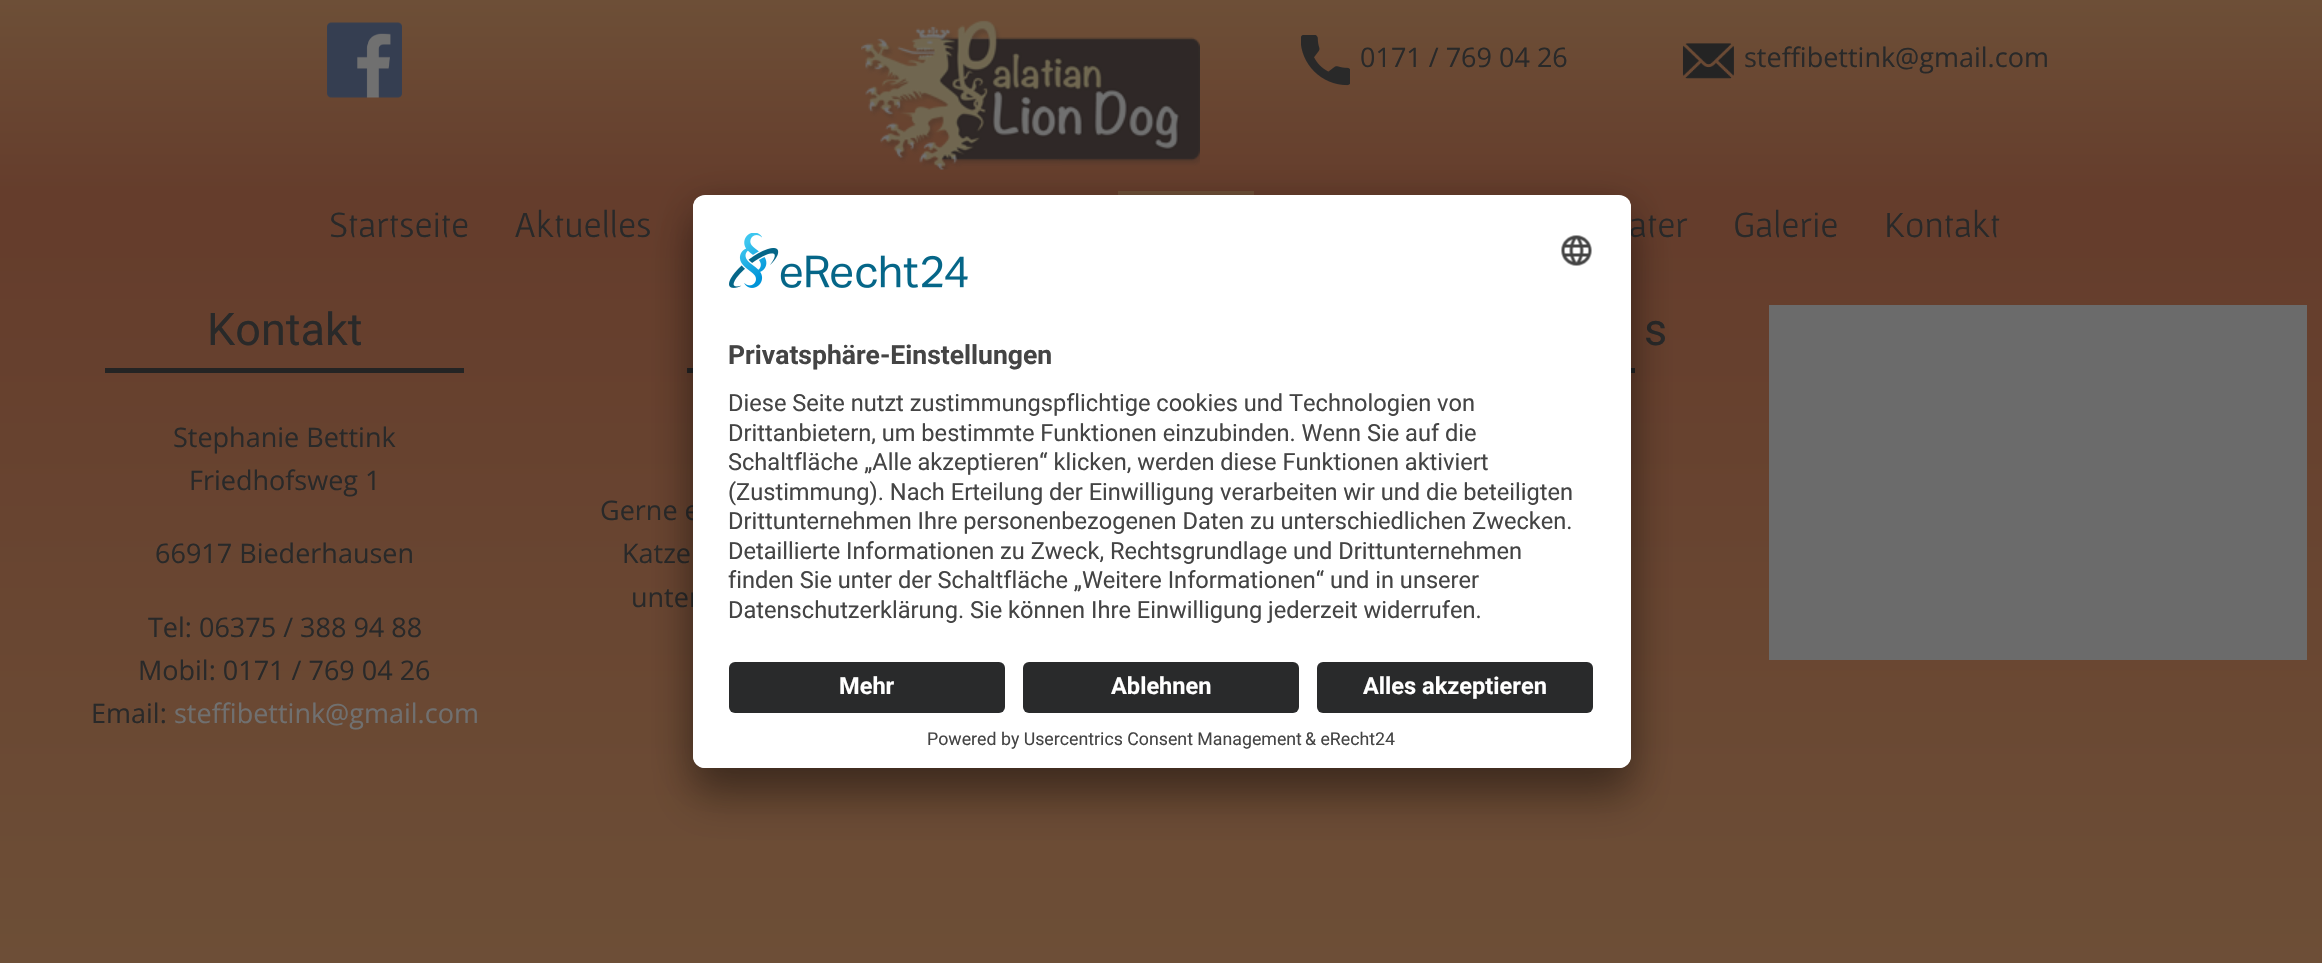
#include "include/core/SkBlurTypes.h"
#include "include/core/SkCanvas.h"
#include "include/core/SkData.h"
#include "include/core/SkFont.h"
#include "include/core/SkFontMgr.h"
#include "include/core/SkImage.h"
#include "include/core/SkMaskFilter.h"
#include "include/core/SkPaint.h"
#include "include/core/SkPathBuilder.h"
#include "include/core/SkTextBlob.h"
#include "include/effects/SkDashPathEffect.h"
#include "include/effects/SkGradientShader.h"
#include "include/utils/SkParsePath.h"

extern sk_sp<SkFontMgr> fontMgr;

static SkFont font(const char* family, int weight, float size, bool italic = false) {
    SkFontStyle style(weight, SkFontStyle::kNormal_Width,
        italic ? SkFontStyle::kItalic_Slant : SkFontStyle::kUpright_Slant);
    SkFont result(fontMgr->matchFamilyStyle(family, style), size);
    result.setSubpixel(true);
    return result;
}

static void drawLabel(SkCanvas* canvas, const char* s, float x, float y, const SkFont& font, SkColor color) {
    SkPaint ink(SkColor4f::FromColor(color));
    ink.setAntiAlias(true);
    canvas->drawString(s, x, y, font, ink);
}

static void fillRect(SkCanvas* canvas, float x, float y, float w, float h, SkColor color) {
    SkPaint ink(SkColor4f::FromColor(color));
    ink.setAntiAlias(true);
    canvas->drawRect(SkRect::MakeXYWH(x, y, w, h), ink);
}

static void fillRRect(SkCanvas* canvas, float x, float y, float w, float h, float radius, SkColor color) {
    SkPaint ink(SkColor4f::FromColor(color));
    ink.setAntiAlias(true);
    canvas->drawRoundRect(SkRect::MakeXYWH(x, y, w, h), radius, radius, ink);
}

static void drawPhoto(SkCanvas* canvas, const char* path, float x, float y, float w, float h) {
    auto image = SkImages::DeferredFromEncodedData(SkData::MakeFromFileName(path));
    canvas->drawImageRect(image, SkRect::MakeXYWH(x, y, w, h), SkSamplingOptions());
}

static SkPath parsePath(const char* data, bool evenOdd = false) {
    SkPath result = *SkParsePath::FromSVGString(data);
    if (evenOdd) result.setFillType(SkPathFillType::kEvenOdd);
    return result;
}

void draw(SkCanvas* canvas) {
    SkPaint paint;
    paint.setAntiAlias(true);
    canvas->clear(0xFFFFFFFF);
    {
        const SkColor colors[] = {0xFF6D4F37, 0xFF653D2C};
        const float stops[] = {0, 1};
        const SkPoint ends[] = {{1161, 0}, {1161, 191}};
        paint.setShader(SkGradientShader::MakeLinear(ends, colors, stops, 2, SkTileMode::kClamp));
        paint.setAlpha(255);
    }
    canvas->drawRect(SkRect::MakeXYWH(0, 0, 2322, 191), paint);
    drawPhoto(canvas, "assets/img1.png", 327, 22, 75, 76);
    drawPhoto(canvas, "assets/img2.png", 861, 20, 339, 150);
    drawPhoto(canvas, "assets/img3.png", 1301, 35, 49, 51);
    SkFont font1 = font("Open Sans", 400, 27);
    drawLabel(canvas, "0171 / 769 04 26", 1360, 67, font1, 0xFF292929);
    drawPhoto(canvas, "assets/img4.png", 1682, 43, 52, 36);
    drawLabel(canvas, "steffibettink@gmail.com", 1744, 67, font1, 0xFF292929);
    fillRect(canvas, 0, 191, 2322, 67, 0xFF653D2C);
    fillRect(canvas, 1118, 191, 136, 4, 0xFF6D4F37);
    SkFont font2 = font("Gafata", 400, 37);
    drawLabel(canvas, "Startseite", 329, 237, font2, 0xFF292929);
    drawLabel(canvas, "Aktuelles", 514, 237, font2, 0xFF292929);
    drawLabel(canvas, "ater", 1629, 237, font2, 0xFF292929);
    drawLabel(canvas, "Galerie", 1733, 237, font2, 0xFF292929);
    drawLabel(canvas, "Kontakt", 1884, 237, font2, 0xFF292929);
    {
        const SkColor colors[] = {0xFF653D2C, 0xFF6D4F37};
        const float stops[] = {0, 1};
        const SkPoint ends[] = {{1161, 237}, {1161, 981}};
        paint.setShader(SkGradientShader::MakeLinear(ends, colors, stops, 2, SkTileMode::kClamp));
        paint.setAlpha(255);
    }
    canvas->drawRect(SkRect::MakeXYWH(0, 258, 2322, 705), paint);
    SkFont font3 = font("Roboto", 400, 45);
    drawLabel(canvas, "Kontakt", 207, 345, font3, 0xFF292929);
    fillRect(canvas, 105, 368, 359, 5, 0xFF242424);
    drawLabel(canvas, "Stephanie Bettink", 173, 447, font1, 0xFF292929);
    drawLabel(canvas, "Friedhofsweg 1", 189, 490, font1, 0xFF292929);
    drawLabel(canvas, "66917 Biederhausen", 155, 563, font1, 0xFF292929);
    drawLabel(canvas, "Tel: 06375 / 388 94 88", 148, 637, font1, 0xFF292929);
    drawLabel(canvas, "Mobil: 0171 / 769 04 26", 138, 680, font1, 0xFF292929);
    drawLabel(canvas, "Email:", 91, 723, font1, 0xFF292929);
    drawLabel(canvas, "steffibettink@gmail.com", 174, 723, font1, 0xFF707070);
    drawLabel(canvas, "s", 1644, 345, font3, 0xFF292929);
    fillRect(canvas, 1631, 368, 4, 5, 0xFF242424);
    fillRect(canvas, 1769, 305, 538, 355, 0xFF6B6B6B);
    fillRect(canvas, 687, 368, 6, 5, 0xFF242424);
    drawLabel(canvas, "Gerne e", 600, 520, font1, 0xFF292929);
    drawLabel(canvas, "Katze", 622, 563, font1, 0xFF292929);
    drawLabel(canvas, "unter", 631, 607, font1, 0xFF292929);
    paint.setShader(nullptr);
    paint.setColor(0x4D000000);
    paint.setMaskFilter(SkMaskFilter::MakeBlur(kNormal_SkBlurStyle, 21));
    canvas->drawRoundRect(SkRect::MakeXYWH(693, 225, 938, 573), 12, 12, paint);
    paint.setMaskFilter(nullptr);
    paint.setColor(0x38000000);
    paint.setMaskFilter(SkMaskFilter::MakeBlur(kNormal_SkBlurStyle, 19.5f));
    canvas->drawRoundRect(SkRect::MakeXYWH(693, 203, 938, 573), 12, 12, paint);
    paint.setMaskFilter(nullptr);
    fillRRect(canvas, 693, 195, 938, 573, 12, 0xFFFFFFFF);
    canvas->save();
    canvas->clipPath(parsePath("M705 195H1619C1625.5 195 1631 200.5 1631 207V756C1631 762.5 1625.5 768 1619 768H705C698.5 768 693 762.5 693 756V207C693 200.5 698.5 195 705 195Z"), true);
    canvas->clipPath(parsePath("M705 195H1619C1625.5 195 1631 200.5 1631 207V650H693V207C693 200.5 698.5 195 705 195Z"), true);
    fillRect(canvas, 693, 197, 938, 453, 0xFFFFFFFF);
    canvas->restore();
    drawPhoto(canvas, "assets/img5.png", 729, 233, 239, 55);
    drawPhoto(canvas, "assets/img6.png", 1561, 235, 31, 31);
    SkFont font4 = font("Roboto", 700, 26.5f);
    drawLabel(canvas, "Privatsphäre-Einstellungen", 728, 364, font4, 0xFF444444);
    SkFont font5 = font("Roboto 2", 400, 23.6f);
    drawLabel(canvas, "Diese Seite nutzt zustimmungspflichtige cookies und Technologien von", 728, 411, font5, 0xFF444444);
    drawLabel(canvas, "Drittanbietern, um bestimmte Funktionen einzubinden. Wenn Sie auf die", 728, 441, font5, 0xFF444444);
    drawLabel(canvas, "Schaltfläche „Alle akzeptieren“ klicken, werden diese Funktionen aktiviert", 728, 470, font5, 0xFF444444);
    drawLabel(canvas, "(Zustimmung). Nach Erteilung der Einwilligung verarbeiten wir und die beteiligten", 728, 500, font5, 0xFF444444);
    drawLabel(canvas, "Drittunternehmen Ihre personenbezogenen Daten zu unterschiedlichen Zwecken.", 728, 529, font5, 0xFF444444);
    drawLabel(canvas, "Detaillierte Informationen zu Zweck, Rechtsgrundlage und Drittunternehmen", 728, 559, font5, 0xFF444444);
    drawLabel(canvas, "finden Sie unter der Schaltfläche „Weitere Informationen“ und in unserer", 728, 588, font5, 0xFF444444);
    drawLabel(canvas, "Datenschutzerklärung. Sie können Ihre Einwilligung jederzeit widerrufen.", 728, 618, font5, 0xFF444444);
    paint.setColor(0xFFFFFFFF);
    canvas->drawPath(parsePath("M693 650H1631V756C1631 762.5 1625.5 768 1619 768H705C698.5 768 693 762.5 693 756Z"), paint);
    fillRRect(canvas, 729, 662, 276, 51, 6, 0xFF292A2B);
    SkFont font6 = font("Roboto", 700, 23.6f);
    drawLabel(canvas, "Mehr", 839, 694, font6, 0xFFFFFFFF);
    fillRRect(canvas, 1023, 662, 276, 51, 6, 0xFF292A2B);
    drawLabel(canvas, "Ablehnen", 1111, 694, font6, 0xFFFFFFFF);
    fillRRect(canvas, 1317, 662, 276, 51, 6, 0xFF292A2B);
    drawLabel(canvas, "Alles akzeptieren", 1363, 694, font6, 0xFFFFFFFF);
    SkFont font7 = font("Roboto 2", 400, 17.75f);
    drawLabel(canvas, "Powered by Usercentrics Consent Management", 927, 745, font7, 0xFF444444);
    drawLabel(canvas, "& eRecht24", 1305, 745, font7, 0xFF444444);
}
